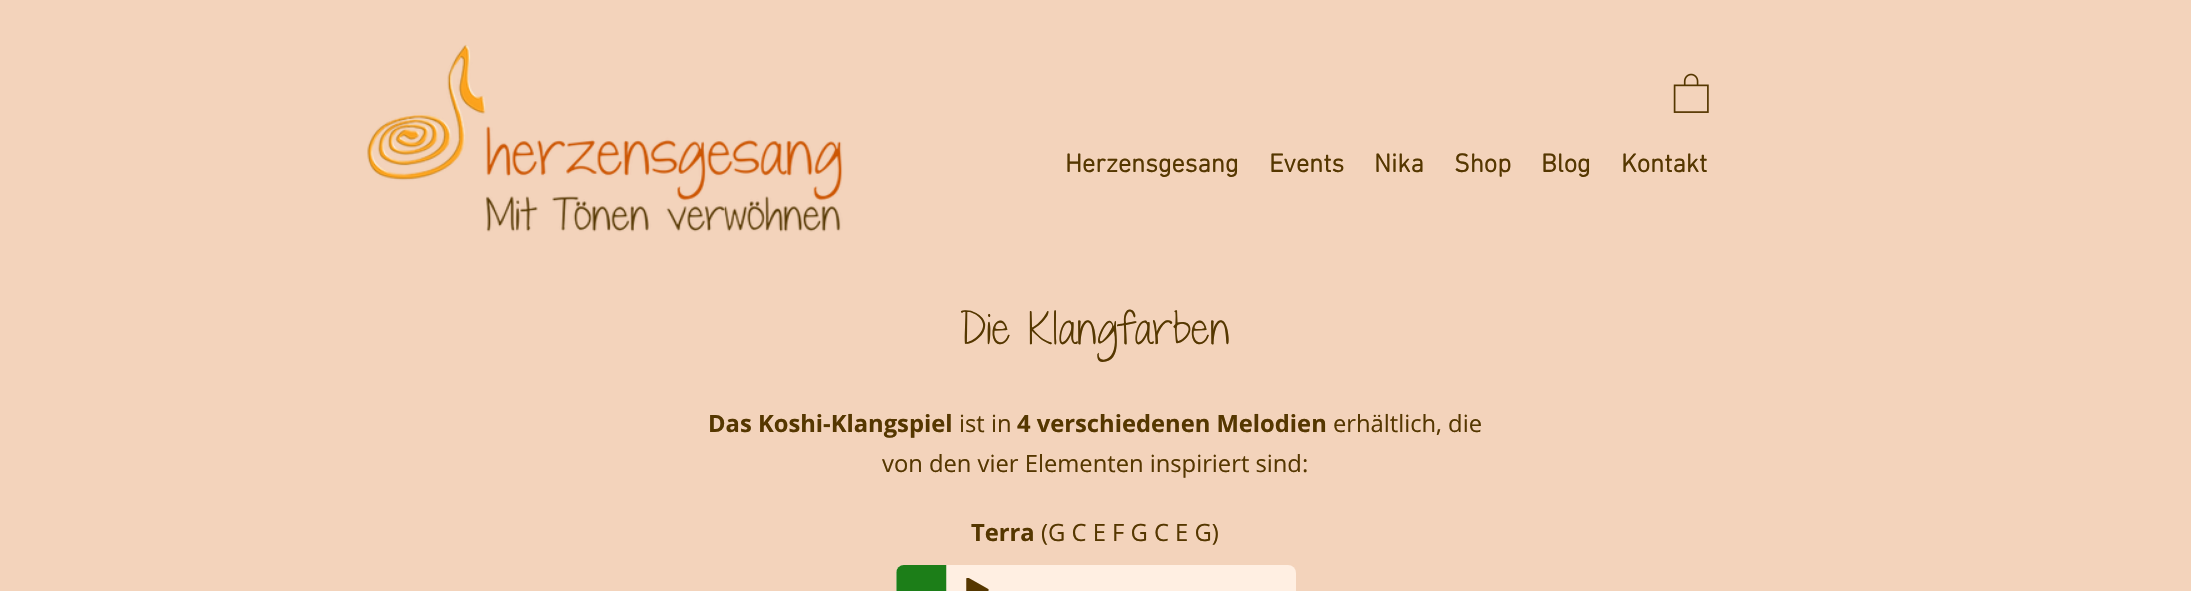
#include "include/core/SkBlurTypes.h"
#include "include/core/SkCanvas.h"
#include "include/core/SkData.h"
#include "include/core/SkFont.h"
#include "include/core/SkFontMgr.h"
#include "include/core/SkImage.h"
#include "include/core/SkMaskFilter.h"
#include "include/core/SkPaint.h"
#include "include/core/SkPathBuilder.h"
#include "include/core/SkTextBlob.h"
#include "include/effects/SkDashPathEffect.h"
#include "include/effects/SkGradientShader.h"
#include "include/utils/SkParsePath.h"

extern sk_sp<SkFontMgr> fontMgr;

static SkFont font(const char* family, int weight, float size, bool italic = false) {
    SkFontStyle style(weight, SkFontStyle::kNormal_Width,
        italic ? SkFontStyle::kItalic_Slant : SkFontStyle::kUpright_Slant);
    SkFont result(fontMgr->matchFamilyStyle(family, style), size);
    result.setSubpixel(true);
    return result;
}

static void drawLabel(SkCanvas* canvas, const char* s, float x, float y, const SkFont& font, SkColor color) {
    SkPaint ink(SkColor4f::FromColor(color));
    ink.setAntiAlias(true);
    canvas->drawString(s, x, y, font, ink);
}

static void fillRRect(SkCanvas* canvas, float x, float y, float w, float h, float radius, SkColor color) {
    SkPaint ink(SkColor4f::FromColor(color));
    ink.setAntiAlias(true);
    canvas->drawRoundRect(SkRect::MakeXYWH(x, y, w, h), radius, radius, ink);
}

static void drawPhoto(SkCanvas* canvas, const char* path, float x, float y, float w, float h) {
    auto image = SkImages::DeferredFromEncodedData(SkData::MakeFromFileName(path));
    canvas->drawImageRect(image, SkRect::MakeXYWH(x, y, w, h), SkSamplingOptions());
}

void draw(SkCanvas* canvas) {
    SkPaint paint;
    paint.setAntiAlias(true);
    canvas->clear(0xFFF3D3BB);
    drawPhoto(canvas, "assets/img1.png", 367, 44, 476, 188);
    drawPhoto(canvas, "assets/img2.png", 1673, 73, 36, 40);
    SkFont font1 = font("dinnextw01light", 700, 26.25f);
    drawLabel(canvas, "Herzensgesang", 1065, 172, font1, 0xFF553700);
    drawLabel(canvas, "Events", 1269, 172, font1, 0xFF553700);
    drawLabel(canvas, "Nika", 1374, 172, font1, 0xFF553700);
    drawLabel(canvas, "Shop", 1454, 172, font1, 0xFF553700);
    drawLabel(canvas, "Blog", 1541, 172, font1, 0xFF553700);
    drawLabel(canvas, "Kontakt", 1621, 172, font1, 0xFF553700);
    SkFont font2 = font("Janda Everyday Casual", 400, 37.5f);
    drawLabel(canvas, "Die Klangfarben", 962, 344, font2, 0xFF553700);
    SkFont font3 = font("Open Sans", 700, 23.75f);
    drawLabel(canvas, "Das Koshi-Klangspiel", 708, 432, font3, 0xFF553700);
    SkFont font4 = font("Open Sans", 400, 23.75f);
    drawLabel(canvas, "ist in", 959, 432, font4, 0xFF553700);
    drawLabel(canvas, "4 verschiedenen Melodien", 1017, 432, font3, 0xFF553700);
    drawLabel(canvas, "erhältlich, die", 1333, 432, font4, 0xFF553700);
    drawLabel(canvas, "von den vier Elementen inspiriert sind:", 882, 472, font4, 0xFF553700);
    drawLabel(canvas, "Terra", 971, 541, font3, 0xFF553700);
    drawLabel(canvas, "(G C E F G C E G)", 1041, 541, font4, 0xFF553700);
    fillRRect(canvas, 896, 565, 400, 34, 8, 0xFFFFEFE2);
    drawPhoto(canvas, "assets/img3.png", 896, 565, 51, 26);
    drawPhoto(canvas, "assets/img4.png", 966, 578, 23, 13);
}
